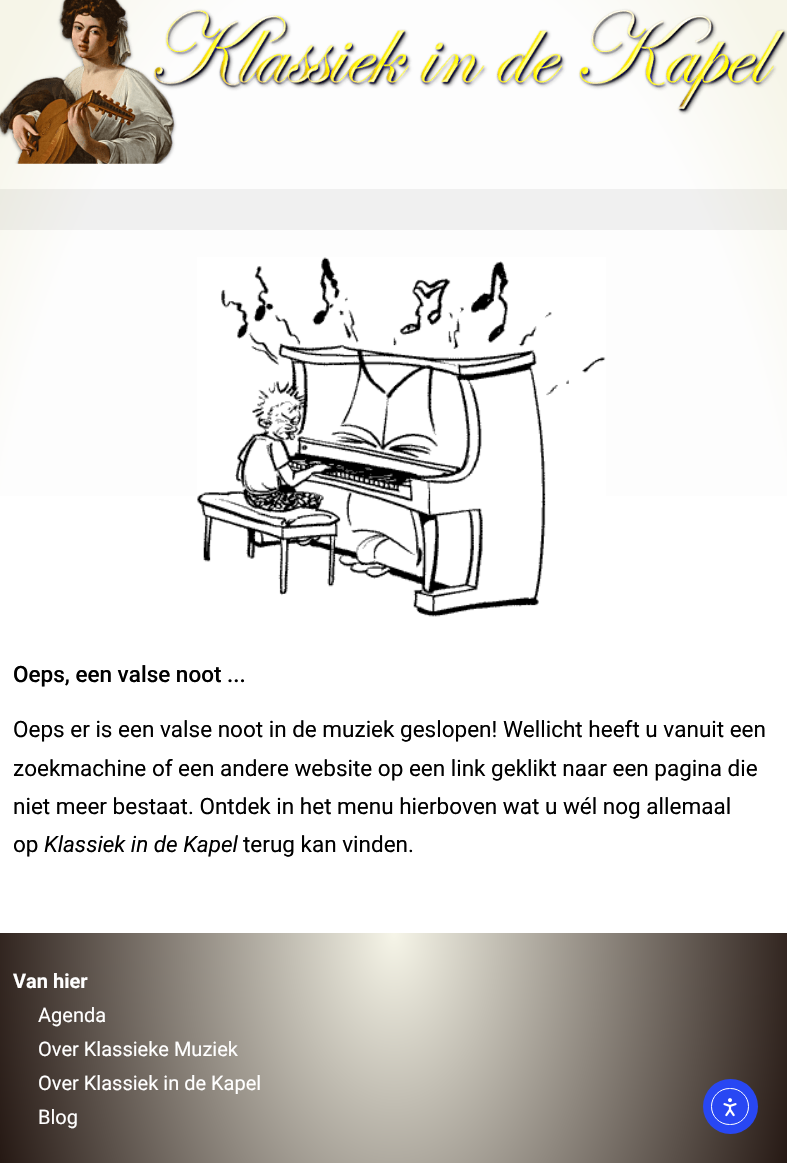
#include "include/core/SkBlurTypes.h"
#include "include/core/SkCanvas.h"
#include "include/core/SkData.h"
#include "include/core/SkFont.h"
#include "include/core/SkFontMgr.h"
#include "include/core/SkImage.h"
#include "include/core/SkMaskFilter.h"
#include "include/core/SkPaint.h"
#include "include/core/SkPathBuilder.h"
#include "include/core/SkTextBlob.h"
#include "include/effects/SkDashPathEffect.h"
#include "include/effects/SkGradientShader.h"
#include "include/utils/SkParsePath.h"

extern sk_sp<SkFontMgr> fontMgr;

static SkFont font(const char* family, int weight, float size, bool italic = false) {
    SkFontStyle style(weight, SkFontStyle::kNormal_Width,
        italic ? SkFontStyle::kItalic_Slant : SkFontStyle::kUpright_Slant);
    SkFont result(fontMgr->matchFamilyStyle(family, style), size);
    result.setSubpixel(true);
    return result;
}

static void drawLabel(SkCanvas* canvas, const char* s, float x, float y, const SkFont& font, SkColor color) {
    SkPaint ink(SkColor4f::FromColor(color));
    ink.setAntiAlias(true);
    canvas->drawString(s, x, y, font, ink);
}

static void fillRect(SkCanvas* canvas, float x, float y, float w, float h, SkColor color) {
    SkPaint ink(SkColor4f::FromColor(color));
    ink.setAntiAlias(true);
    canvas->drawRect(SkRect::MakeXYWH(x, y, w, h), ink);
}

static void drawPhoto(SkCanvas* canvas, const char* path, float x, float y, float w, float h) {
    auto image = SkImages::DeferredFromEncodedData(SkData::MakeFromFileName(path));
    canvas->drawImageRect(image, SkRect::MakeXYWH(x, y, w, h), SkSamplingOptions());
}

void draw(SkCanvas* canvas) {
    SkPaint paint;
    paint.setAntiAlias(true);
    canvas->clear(0xFFFFFFFF);
    {
        const SkColor colors[] = {0xFFFDFDFD, 0xFFF6F5E8};
        const float stops[] = {0.75f, 0.95f};
        SkMatrix m = SkMatrix::Translate(394, 784).preScale(557, 1108);
        paint.setShader(SkGradientShader::MakeRadial({0, 0}, 1, colors, stops, 2, SkTileMode::kClamp, 0, &m));
        paint.setAlpha(255);
    }
    canvas->drawRect(SkRect::MakeXYWH(0, 0, 787, 496), paint);
    drawPhoto(canvas, "assets/img1.png", 0, 0, 787, 164);
    fillRect(canvas, 0, 189, 787, 41, 0x0D000000);
    drawPhoto(canvas, "assets/img2.png", 197, 257, 409, 360);
    SkFont font1 = font("Roboto", 500, 22.5f);
    drawLabel(canvas, "Oeps, een valse noot ...", 13, 682, font1, 0xFF000000);
    SkFont font2 = font("Roboto", 400, 22.5f);
    drawLabel(canvas, "Oeps er is een valse noot in de muziek geslopen! Wellicht heeft u vanuit een", 13, 737, font2, 0xFF000000);
    drawLabel(canvas, "zoekmachine of een andere website op een link geklikt naar een pagina die", 13, 776, font2, 0xFF000000);
    drawLabel(canvas, "niet meer bestaat. Ontdek in het menu hierboven wat u wél nog allemaal", 13, 814, font2, 0xFF000000);
    drawLabel(canvas, "op", 13, 852, font2, 0xFF000000);
    SkFont font3 = font("Roboto", 400, 22.5f, true);
    drawLabel(canvas, "Klassiek in de Kapel", 44, 852, font3, 0xFF000000);
    drawLabel(canvas, "terug kan vinden.", 243, 852, font2, 0xFF000000);
    {
        const SkColor colors[] = {0xFFF6F5E8, 0xFF261914};
        const float stops[] = {0, 0.75f};
        SkMatrix m = SkMatrix::Translate(394, 933).preScale(557, 898);
        paint.setShader(SkGradientShader::MakeRadial({0, 0}, 1, colors, stops, 2, SkTileMode::kClamp, 0, &m));
        paint.setAlpha(255);
    }
    canvas->drawRect(SkRect::MakeXYWH(0, 933, 787, 230), paint);
    SkFont font4 = font("Roboto", 700, 20);
    drawLabel(canvas, "Van hier", 13, 988, font4, 0xFFFFFFFF);
    SkFont font5 = font("Roboto", 400, 20);
    drawLabel(canvas, "Agenda", 38, 1022, font5, 0xFFFFFFFF);
    drawLabel(canvas, "Over Klassieke Muziek", 38, 1056, font5, 0xFFFFFFFF);
    drawLabel(canvas, "Over Klassiek in de Kapel", 38, 1090, font5, 0xFFFFFFFF);
    drawLabel(canvas, "Blog", 38, 1124, font5, 0xFFFFFFFF);
    paint.setShader(nullptr);
    paint.setColor(0xFF2847F3);
    canvas->drawCircle(730.5f, 1106.5f, 27.5f, paint);
    paint.setStroke(true);
    paint.setStrokeWidth(1);
    paint.setColor(0xFFFFFFFF);
    canvas->drawRoundRect(SkRect::MakeXYWH(711.5f, 1088.5f, 37, 36), 18, 18, paint);
    drawPhoto(canvas, "assets/img3.png", 723, 1098, 14, 19);
}
